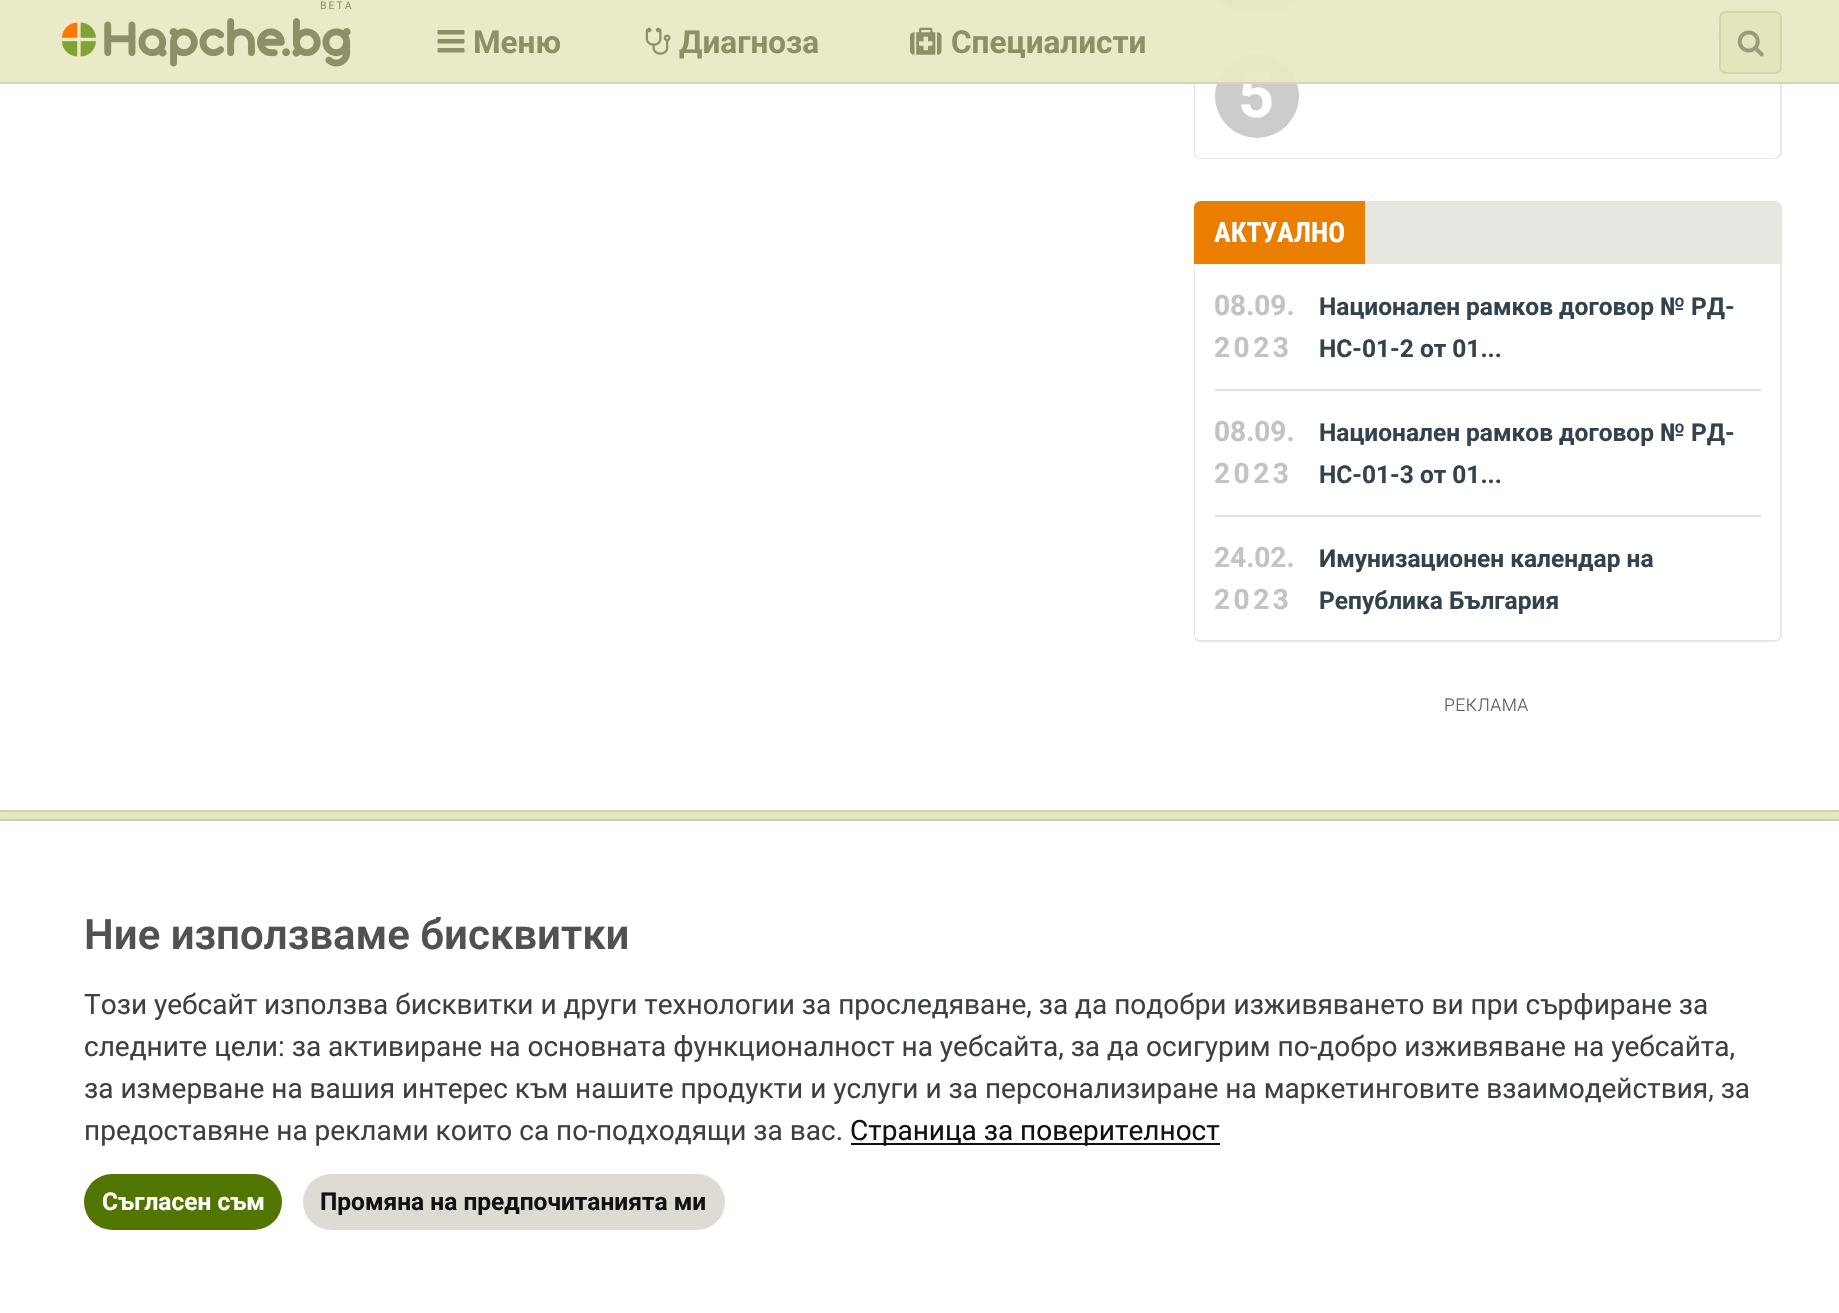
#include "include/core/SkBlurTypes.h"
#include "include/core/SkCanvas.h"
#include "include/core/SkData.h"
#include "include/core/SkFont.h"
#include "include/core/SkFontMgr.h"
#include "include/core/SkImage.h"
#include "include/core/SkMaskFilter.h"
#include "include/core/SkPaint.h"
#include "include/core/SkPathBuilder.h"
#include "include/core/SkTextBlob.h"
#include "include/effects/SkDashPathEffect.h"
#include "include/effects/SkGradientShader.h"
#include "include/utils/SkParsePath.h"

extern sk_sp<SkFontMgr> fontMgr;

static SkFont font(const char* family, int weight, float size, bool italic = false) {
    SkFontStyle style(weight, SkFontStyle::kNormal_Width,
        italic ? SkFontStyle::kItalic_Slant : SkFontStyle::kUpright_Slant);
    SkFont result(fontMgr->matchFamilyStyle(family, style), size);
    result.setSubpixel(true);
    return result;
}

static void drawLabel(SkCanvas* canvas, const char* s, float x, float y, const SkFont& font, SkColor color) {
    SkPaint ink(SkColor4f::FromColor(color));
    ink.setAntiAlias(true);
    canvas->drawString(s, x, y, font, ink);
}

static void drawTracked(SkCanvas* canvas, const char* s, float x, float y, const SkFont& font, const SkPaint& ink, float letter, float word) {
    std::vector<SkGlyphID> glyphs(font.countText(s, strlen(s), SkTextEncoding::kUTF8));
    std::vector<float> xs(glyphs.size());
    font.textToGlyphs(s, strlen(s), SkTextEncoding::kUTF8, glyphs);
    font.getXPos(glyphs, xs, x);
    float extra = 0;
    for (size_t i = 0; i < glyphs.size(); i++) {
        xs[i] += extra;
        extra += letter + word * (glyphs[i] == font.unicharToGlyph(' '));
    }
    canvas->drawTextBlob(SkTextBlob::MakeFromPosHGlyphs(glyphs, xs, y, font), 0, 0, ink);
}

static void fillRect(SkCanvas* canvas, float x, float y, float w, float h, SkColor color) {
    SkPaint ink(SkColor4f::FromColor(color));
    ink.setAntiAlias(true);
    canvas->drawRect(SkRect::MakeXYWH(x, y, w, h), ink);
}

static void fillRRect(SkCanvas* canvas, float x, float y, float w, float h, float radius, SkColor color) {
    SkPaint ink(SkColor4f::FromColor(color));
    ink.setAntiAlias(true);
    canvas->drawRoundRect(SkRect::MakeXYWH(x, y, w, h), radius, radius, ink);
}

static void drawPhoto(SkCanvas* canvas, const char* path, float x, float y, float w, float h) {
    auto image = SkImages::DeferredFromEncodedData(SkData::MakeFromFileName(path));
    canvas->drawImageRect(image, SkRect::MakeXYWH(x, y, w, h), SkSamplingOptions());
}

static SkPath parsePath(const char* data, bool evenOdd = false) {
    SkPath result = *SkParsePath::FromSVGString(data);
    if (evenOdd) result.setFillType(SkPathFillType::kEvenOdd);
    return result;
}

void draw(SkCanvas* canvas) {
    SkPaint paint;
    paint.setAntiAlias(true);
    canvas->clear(0xFFE9E9C5);
    fillRect(canvas, 0, 0, 1839, 810, 0xFFFFFFFF);
    paint.setColor(0xFFE7E7E2);
    canvas->drawPath(parsePath("M1194-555H1782V152C1782 156 1778 159 1774 159H1200C1197 159 1194 156 1194 152ZM1195-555H1780V152C1780 155 1777 158 1774 158H1200C1198 158 1195 155 1195 152Z", true), paint);
    fillRect(canvas, 1215, 32, 504, 2, 0xFFDFDFD8);
    fillRRect(canvas, 1215, -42, 84, 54, 42, 0xFFCCCCCC);
    paint.setColor(0xFFCCCCCC);
    canvas->drawCircle(1257, 96, 42, paint);
    SkFont font1 = font("Roboto", 700, 63);
    drawLabel(canvas, "5", 1238, 117, font1, 0xFFFFFFFF);
    fillRect(canvas, 0, 0, 1839, 84, 0xF0E9E9C5);
    fillRect(canvas, 0, 82, 1839, 2, 0xF0D4D4B0);
    SkFont font2 = font("Roboto", 400, 10.5f);
    paint.setColor(0xFF8E8E67);
    drawTracked(canvas, "BETA", 320, 9, font2, paint, 2, 0);
    drawPhoto(canvas, "assets/img1.png", 62, 18, 289, 49);
    drawPhoto(canvas, "assets/img2.png", 437, 30, 28, 23);
    SkFont font3 = font("Roboto", 700, 31.5f);
    drawLabel(canvas, "Меню", 473, 53, font3, 0xFF8E8E67);
    drawPhoto(canvas, "assets/img3.png", 645, 27, 26, 28);
    drawLabel(canvas, "Диагноза", 679, 53, font3, 0xFF8E8E67);
    drawPhoto(canvas, "assets/img4.png", 910, 27, 32, 28);
    drawLabel(canvas, "Специалисти", 951, 53, font3, 0xFF8E8E67);
    paint.setColor(0xFFE4E4BD);
    canvas->drawRoundRect(SkRect::MakeXYWH(1720, 12, 61, 61), 6, 6, paint);
    paint.setStroke(true);
    paint.setStrokeWidth(2);
    paint.setColor(0xFFD4D4B0);
    canvas->drawRoundRect(SkRect::MakeXYWH(1720, 12, 61, 61), 6, 6, paint);
    drawPhoto(canvas, "assets/img5.png", 1737, 30, 27, 27);
    fillRect(canvas, 0, 810, 1839, 2, 0xFFD4D4B0);
    paint.setStroke(false);
    paint.setColor(0xFFE7E7E2);
    canvas->drawPath(parsePath("M1201 201H1775C1779 201 1782 204 1782 208V264H1194V208C1194 204 1197 201 1201 201Z"), paint);
    paint.setColor(0xFFE97E00);
    canvas->drawPath(parsePath("M1201 201H1365V264H1194V208C1194 204 1197 201 1201 201Z"), paint);
    SkFont font4 = font("Roboto Condensed", 700, 28);
    drawLabel(canvas, "АКТУАЛНО", 1214, 242, font4, 0xFFFFFFFF);
    paint.setColor(0xFFE7E7E2);
    canvas->drawPath(parsePath("M1194 264H1782V635C1782 639 1778 642 1774 642H1200C1197 642 1194 639 1194 635ZM1195 264H1780V635C1780 638 1777 640 1774 640H1200C1198 640 1195 638 1195 635Z", true), paint);
    fillRect(canvas, 1215, 389, 546, 2, 0xFFDFDFD8);
    canvas->save();
    canvas->clipRect(SkRect::MakeXYWH(1215, 285, 546, 104));
    SkFont font5 = font("Roboto", 700, 28);
    drawLabel(canvas, "08.09.", 1214, 315, font5, 0xFFC3C3C3);
    canvas->restore();
    SkFont font6 = font("Roboto", 700, 24.5f);
    drawLabel(canvas, "Национален рамков договор № РД-", 1319, 315, font6, 0xFF34424D);
    drawLabel(canvas, "НС-01-2 от 01...", 1319, 357, font6, 0xFF34424D);
    canvas->save();
    canvas->clipRect(SkRect::MakeXYWH(1215, 285, 546, 104));
    paint.setColor(0xFFC3C3C3);
    drawTracked(canvas, "2023", 1214, 357, font5, paint, 3.5f, 0);
    canvas->restore();
    fillRect(canvas, 1215, 515, 546, 2, 0xFFDFDFD8);
    canvas->save();
    canvas->clipRect(SkRect::MakeXYWH(1215, 390, 546, 125));
    drawLabel(canvas, "08.09.", 1214, 441, font5, 0xFFC3C3C3);
    canvas->restore();
    drawLabel(canvas, "Национален рамков договор № РД-", 1319, 441, font6, 0xFF34424D);
    drawLabel(canvas, "НС-01-3 от 01...", 1319, 483, font6, 0xFF34424D);
    canvas->save();
    canvas->clipRect(SkRect::MakeXYWH(1215, 390, 546, 125));
    drawTracked(canvas, "2023", 1214, 483, font5, paint, 3.5f, 0);
    canvas->restore();
    canvas->save();
    canvas->clipRect(SkRect::MakeXYWH(1215, 516, 546, 105));
    drawLabel(canvas, "24.02.", 1214, 567, font5, 0xFFC3C3C3);
    canvas->restore();
    drawLabel(canvas, "Имунизационен календар на", 1319, 567, font6, 0xFF34424D);
    drawLabel(canvas, "Република България", 1319, 609, font6, 0xFF34424D);
    canvas->save();
    canvas->clipRect(SkRect::MakeXYWH(1215, 516, 546, 105));
    drawTracked(canvas, "2023", 1214, 609, font5, paint, 3.5f, 0);
    canvas->restore();
    SkFont font7 = font("Roboto", 300, 17.5f);
    paint.setColor(0xFF585858);
    drawTracked(canvas, "РЕКЛАМА", 1444, 711, font7, paint, 0.5f, 0);
    paint.setColor(0x29000000);
    paint.setMaskFilter(SkMaskFilter::MakeBlur(kNormal_SkBlurStyle, 7));
    canvas->drawRect(SkRect::MakeXYWH(0, 826, 1839, 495), paint);
    paint.setMaskFilter(nullptr);
    fillRect(canvas, 0, 821, 1839, 492, 0xFFFFFFFF);
    fillRect(canvas, 0, 819, 1839, 2, 0xFFCCCCCC);
    SkFont font8 = font("Roboto", 600, 42);
    drawLabel(canvas, "Ние използваме бисквитки", 84, 949, font8, 0xFF525151);
    SkFont font9 = font("Roboto", 400, 28);
    drawLabel(canvas, "Този уебсайт използва бисквитки и други технологии за проследяване, за да подобри изживяването ви при сърфиране за", 84, 1014, font9, 0xFF3C4043);
    drawLabel(canvas, "следните цели: за активиране на основната функционалност на уебсайта, за да осигурим по-добро изживяване на уебсайта,", 84, 1056, font9, 0xFF3C4043);
    drawLabel(canvas, "за измерване на вашия интерес към нашите продукти и услуги и за персонализиране на маркетинговите взаимодействия, за", 84, 1098, font9, 0xFF3C4043);
    drawLabel(canvas, "предоставяне на реклами които са по-подходящи за вас.", 84, 1140, font9, 0xFF3C4043);
    fillRect(canvas, 851, 1143, 369, 2, 0xFF111111);
    drawLabel(canvas, "Страница за поверителност", 850, 1140, font9, 0xFF111111);
    fillRRect(canvas, 84, 1174, 198, 56, 28, 0xFF517600);
    drawLabel(canvas, "Съгласен съм", 102, 1210, font6, 0xFFFFFFFF);
    fillRRect(canvas, 303, 1174, 422, 56, 28, 0xFFDDDBD3);
    drawLabel(canvas, "Промяна на предпочитанията ми", 320, 1210, font6, 0xFF111111);
}
